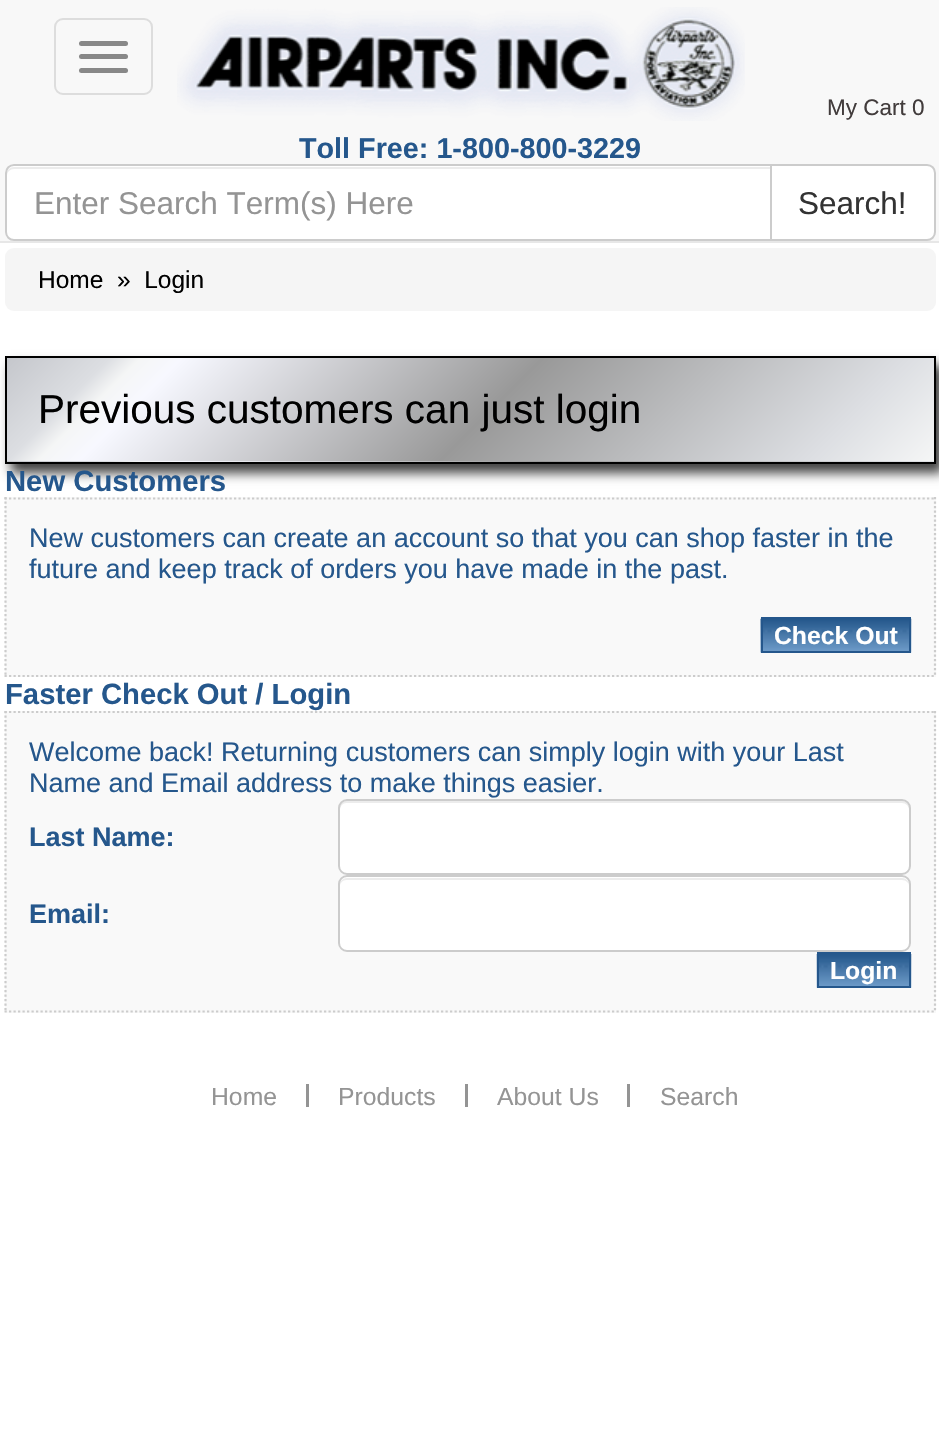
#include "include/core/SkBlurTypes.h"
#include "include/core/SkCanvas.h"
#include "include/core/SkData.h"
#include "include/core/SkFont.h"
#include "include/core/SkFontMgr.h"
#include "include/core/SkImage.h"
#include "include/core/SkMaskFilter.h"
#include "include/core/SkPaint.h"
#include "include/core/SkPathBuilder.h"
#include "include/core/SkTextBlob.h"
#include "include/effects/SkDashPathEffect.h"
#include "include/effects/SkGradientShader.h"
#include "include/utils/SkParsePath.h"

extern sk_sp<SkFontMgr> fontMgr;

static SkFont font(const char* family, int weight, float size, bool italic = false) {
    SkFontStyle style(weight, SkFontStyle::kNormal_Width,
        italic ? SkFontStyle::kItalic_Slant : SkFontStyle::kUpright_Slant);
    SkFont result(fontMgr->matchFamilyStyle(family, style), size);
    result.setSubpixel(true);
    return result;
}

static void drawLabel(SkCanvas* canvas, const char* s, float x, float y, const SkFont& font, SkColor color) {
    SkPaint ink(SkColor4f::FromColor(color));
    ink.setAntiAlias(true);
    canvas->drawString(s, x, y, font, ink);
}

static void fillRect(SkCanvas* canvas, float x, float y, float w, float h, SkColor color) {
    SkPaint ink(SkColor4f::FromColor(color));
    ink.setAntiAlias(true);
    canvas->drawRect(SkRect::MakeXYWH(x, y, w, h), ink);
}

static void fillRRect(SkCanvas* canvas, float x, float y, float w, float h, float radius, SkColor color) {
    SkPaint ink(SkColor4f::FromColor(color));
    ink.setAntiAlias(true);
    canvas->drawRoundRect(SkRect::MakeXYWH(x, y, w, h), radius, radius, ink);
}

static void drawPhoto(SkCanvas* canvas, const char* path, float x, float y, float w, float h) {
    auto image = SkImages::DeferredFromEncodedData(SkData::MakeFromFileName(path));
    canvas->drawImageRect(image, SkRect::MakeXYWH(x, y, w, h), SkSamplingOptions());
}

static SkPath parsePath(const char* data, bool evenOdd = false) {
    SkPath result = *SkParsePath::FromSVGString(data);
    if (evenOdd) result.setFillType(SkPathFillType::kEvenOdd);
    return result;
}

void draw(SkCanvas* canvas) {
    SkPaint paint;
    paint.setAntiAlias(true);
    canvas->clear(0xFFFFFFFF);
    fillRect(canvas, 0, 0, 939, 241, 0xFFF8F8F8);
    fillRect(canvas, 0, 241, 939, 2, 0xFFE7E7E7);
    paint.setStroke(true);
    paint.setStrokeWidth(2);
    paint.setColor(0xFFDDDDDD);
    canvas->drawRoundRect(SkRect::MakeXYWH(55, 19, 97, 75), 8, 8, paint);
    fillRRect(canvas, 79, 41, 49, 5, 2.5f, 0xFF888888);
    fillRRect(canvas, 79, 54, 49, 5, 2.5f, 0xFF888888);
    fillRRect(canvas, 79, 68, 49, 5, 2.5f, 0xFF888888);
    SkFont font1 = font("Liberation Sans", 400, 22.5f);
    drawLabel(canvas, "My Cart 0", 827, 115, font1, 0xFF423C3C);
    drawPhoto(canvas, "assets/img1.png", 177, 7, 568, 114);
    SkFont font2 = font("Liberation Sans", 700, 28.75f);
    drawLabel(canvas, "Toll Free: 1-800-800-3229", 299, 158, font2, 0xFF25578C);
    paint.setStroke(false);
    paint.setColor(0xFFFFFFFF);
    canvas->drawPath(parsePath("M771 165H927C931.5 165 935 168.5 935 173V232C935 236.5 931.5 240 927 240H771Z"), paint);
    paint.setStroke(true);
    paint.setColor(0xFFCCCCCC);
    canvas->drawPath(parsePath("M771 165H927C931.5 165 935 168.5 935 173V232C935 236.5 931.5 240 927 240H771Z"), paint);
    paint.setStroke(false);
    paint.setColor(0xFFFFFFFF);
    canvas->drawPath(parsePath("M14 164H772V241H14C9 241 5 237 5 232V173C5 168 9 164 14 164Z"), paint);
    paint.setColor(0xFFECECEC);
    canvas->drawPath(parsePath("M14 169H770V167H14C10 167 7 170 7 174V176C7 172 10 169 14 169Z"), paint);
    paint.setStroke(true);
    paint.setColor(0xFFCCCCCC);
    canvas->drawPath(parsePath("M14 165H771V240H14C9.5 240 6 236.5 6 232V173C6 168.5 9.5 165 14 165Z"), paint);
    SkFont font3 = font("Liberation Sans", 400, 31.5f);
    drawLabel(canvas, "Enter Search Term(s) Here", 34, 214, font3, 0xFF949494);
    drawLabel(canvas, "Search!", 798, 214, font3, 0xFF333333);
    fillRRect(canvas, 5, 248, 931, 63, 9, 0xFFF5F5F5);
    SkFont font4 = font("Liberation Sans", 400, 24.5f);
    drawLabel(canvas, "Home", 38, 288, font4, 0xFF000000);
    drawLabel(canvas, "»  Login", 117, 288, font4, 0xFF000000);
    paint.setStroke(false);
    paint.setColor(0xBF000000);
    paint.setMaskFilter(SkMaskFilter::MakeBlur(kNormal_SkBlurStyle, 5.5f));
    canvas->drawRect(SkRect::MakeXYWH(11, 365, 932, 108), paint);
    paint.setMaskFilter(nullptr);
    {
        const SkColor colors[] = {0xFFC5C7CC, 0xFFDCDEE2, 0xFFF5F6F6, 0xFFF7F8FF, 0xFF999999, 0xFFDDDFE3, 0xFFF5F6F6};
        const float stops[] = {0, 0.1f, 0.13f, 0.17f, 0.52f, 0.88f, 1};
        const SkPoint ends[] = {{213, 152}, {728, 667}};
        paint.setShader(SkGradientShader::MakeLinear(ends, colors, stops, 7, SkTileMode::kClamp));
        paint.setAlpha(255);
    }
    canvas->drawRect(SkRect::MakeXYWH(7, 358, 927, 103), paint);
    {
        const SkColor colors[] = {0xFFC5C7CC, 0xFFDCDEE2, 0xFFF5F6F6, 0xFFF7F8FF, 0xFF999999, 0xFFDDDFE3, 0xFFF5F6F6};
        const float stops[] = {0, 0.1f, 0.13f, 0.17f, 0.52f, 0.88f, 1};
        const SkPoint ends[] = {{213, 255}, {728, 771}};
        paint.setShader(SkGradientShader::MakeLinear(ends, colors, stops, 7, SkTileMode::kClamp));
        paint.setAlpha(255);
    }
    canvas->drawRect(SkRect::MakeXYWH(7, 461, 927, 1), paint);
    paint.setStroke(true);
    paint.setShader(nullptr);
    paint.setColor(0xFF000000);
    canvas->drawRect(SkRect::MakeXYWH(6, 357, 929, 106), paint);
    SkFont font5 = font("Liberation Sans", 400, 40.5f);
    drawLabel(canvas, "Previous customers can just login", 38, 423, font5, 0xFF000000);
    SkFont font6 = font("Liberation Sans", 700, 29.25f);
    drawLabel(canvas, "New Customers", 5, 491, font6, 0xFF25578C);
    fillRect(canvas, 5, 497, 931, 180, 0xFFF9F9F9);
    paint.setStrokeWidth(2.2f);
    paint.setColor(0xFFCCCCCC);
    paint.setPathEffect(SkDashPathEffect::Make({{2.25f, 2.25f}}, 0));
    canvas->drawPath(parsePath("M4.5 498.5H936"), paint);
    paint.setPathEffect(nullptr);
    paint.setPathEffect(SkDashPathEffect::Make({{2.25f, 2.25f}}, 0));
    canvas->drawPath(parsePath("M935 497V677"), paint);
    paint.setPathEffect(nullptr);
    paint.setPathEffect(SkDashPathEffect::Make({{2.25f, 2.25f}}, 0));
    canvas->drawPath(parsePath("M4.5 676H936"), paint);
    paint.setPathEffect(nullptr);
    paint.setPathEffect(SkDashPathEffect::Make({{2.25f, 2.25f}}, 0));
    canvas->drawPath(parsePath("M5.5 497V677"), paint);
    paint.setPathEffect(nullptr);
    SkFont font7 = font("Liberation Sans", 400, 27);
    drawLabel(canvas, "New customers can create an account so that you can shop faster in the", 29, 547, font7, 0xFF25578C);
    drawLabel(canvas, "future and keep track of orders you have made in the past.", 29, 578, font7, 0xFF25578C);
    drawPhoto(canvas, "assets/img2.png", 760, 618, 152, 35);
    paint.setStrokeWidth(2);
    paint.setColor(0xFF25578C);
    canvas->drawRect(SkRect::MakeXYWH(762, 618, 148, 34), paint);
    SkFont font8 = font("Liberation Sans", 700, 24.75f);
    drawLabel(canvas, "Check Out", 774, 644, font8, 0xFFFFFFFF);
    fillRect(canvas, 5, 711, 931, 302, 0xFFF9F9F9);
    paint.setStrokeWidth(2.2f);
    paint.setColor(0xFFCCCCCC);
    paint.setPathEffect(SkDashPathEffect::Make({{2.25f, 2.25f}}, 0));
    canvas->drawPath(parsePath("M4.5 712H936"), paint);
    paint.setPathEffect(nullptr);
    drawLabel(canvas, "Faster Check Out / Login", 5, 704, font6, 0xFF25578C);
    paint.setPathEffect(SkDashPathEffect::Make({{2.25f, 2.25f}}, 0));
    canvas->drawPath(parsePath("M935 711V1012.5"), paint);
    paint.setPathEffect(nullptr);
    paint.setPathEffect(SkDashPathEffect::Make({{2.25f, 2.25f}}, 0));
    canvas->drawPath(parsePath("M4.5 1011.5H936"), paint);
    paint.setPathEffect(nullptr);
    paint.setPathEffect(SkDashPathEffect::Make({{2.25f, 2.25f}}, 0));
    canvas->drawPath(parsePath("M5.5 711V1012.5"), paint);
    paint.setPathEffect(nullptr);
    drawLabel(canvas, "Welcome back! Returning customers can simply login with your Last", 29, 761, font7, 0xFF25578C);
    drawLabel(canvas, "Name and Email address to make things easier.", 29, 792, font7, 0xFF25578C);
    SkFont font9 = font("Liberation Sans", 700, 27);
    drawLabel(canvas, "Last Name:", 29, 846, font9, 0xFF25578C);
    fillRRect(canvas, 338, 799, 573, 76, 9, 0xFFFFFFFF);
    paint.setStroke(false);
    paint.setColor(0xFFECECEC);
    canvas->drawPath(parsePath("M346 803H902C906 803 909 806 909 810V808C909 804 906 801 902 801H347C343 801 340 804 340 808V810C340 806 343 803 346 803Z"), paint);
    paint.setStroke(true);
    paint.setStrokeWidth(2);
    paint.setColor(0xFFCCCCCC);
    canvas->drawRoundRect(SkRect::MakeXYWH(339, 800, 571, 74), 8, 8, paint);
    drawLabel(canvas, "Email:", 29, 923, font9, 0xFF25578C);
    fillRRect(canvas, 338, 875, 573, 77, 9, 0xFFFFFFFF);
    paint.setStroke(false);
    paint.setColor(0xFFECECEC);
    canvas->drawPath(parsePath("M346 880H902C906 880 909 883 909 886C909 882 907 878 902 878H347C342 878 340 882 340 886C340 883 343 880 346 880Z"), paint);
    paint.setStroke(true);
    paint.setColor(0xFFCCCCCC);
    canvas->drawRoundRect(SkRect::MakeXYWH(339, 876, 571, 75), 8, 8, paint);
    drawPhoto(canvas, "assets/img3.png", 816, 954, 96, 34);
    paint.setColor(0xFF25578C);
    canvas->drawRect(SkRect::MakeXYWH(818, 953, 92, 34), paint);
    drawLabel(canvas, "Login", 830, 979, font8, 0xFFFFFFFF);
    SkFont font10 = font("Liberation Sans", 400, 24.75f);
    drawLabel(canvas, "Home", 211, 1105, font10, 0xFF949494);
    drawLabel(canvas, "Products", 338, 1105, font10, 0xFF949494);
    fillRect(canvas, 306, 1084, 3, 23, 0xFF949494);
    drawLabel(canvas, "About Us", 497, 1105, font10, 0xFF949494);
    fillRect(canvas, 465, 1084, 3, 23, 0xFF949494);
    drawLabel(canvas, "Search", 660, 1105, font10, 0xFF949494);
    fillRect(canvas, 627, 1084, 3, 23, 0xFF949494);
}
